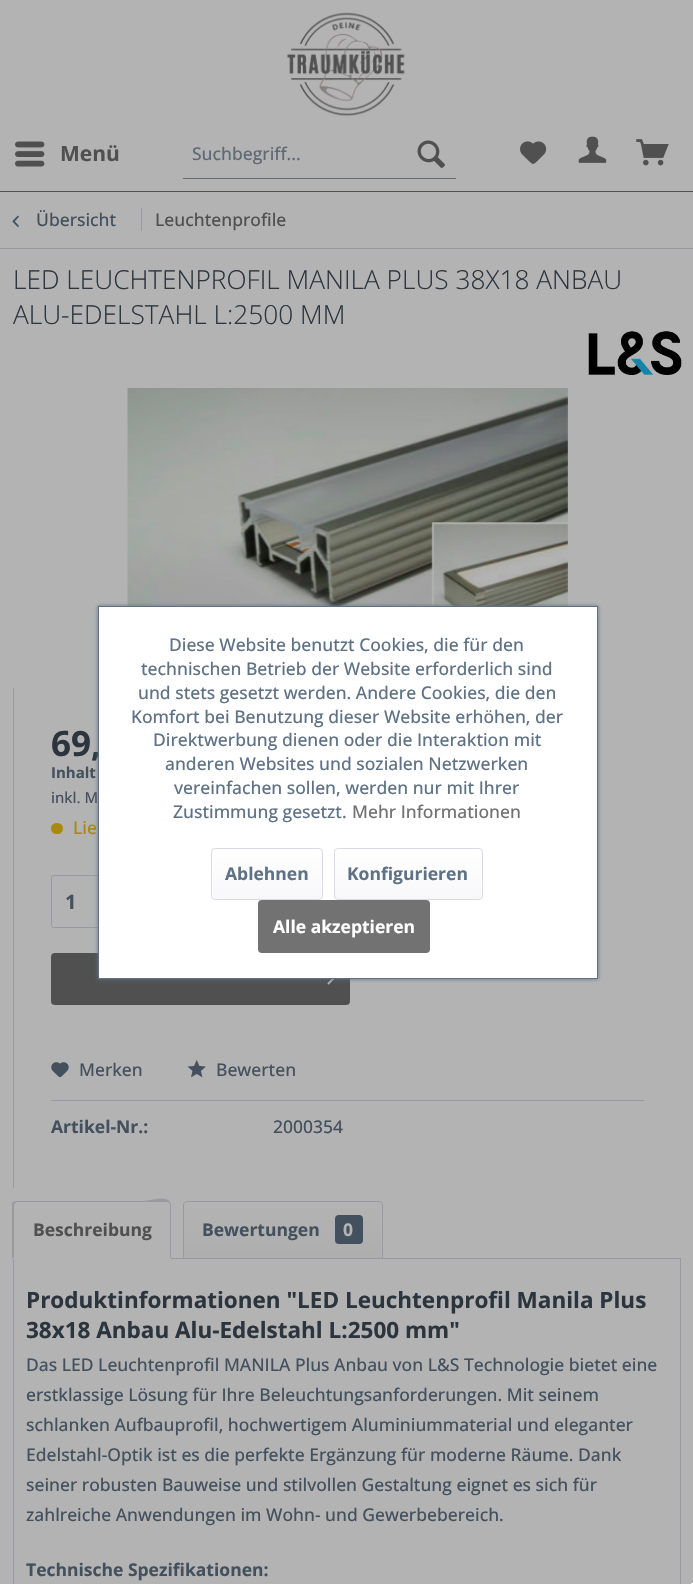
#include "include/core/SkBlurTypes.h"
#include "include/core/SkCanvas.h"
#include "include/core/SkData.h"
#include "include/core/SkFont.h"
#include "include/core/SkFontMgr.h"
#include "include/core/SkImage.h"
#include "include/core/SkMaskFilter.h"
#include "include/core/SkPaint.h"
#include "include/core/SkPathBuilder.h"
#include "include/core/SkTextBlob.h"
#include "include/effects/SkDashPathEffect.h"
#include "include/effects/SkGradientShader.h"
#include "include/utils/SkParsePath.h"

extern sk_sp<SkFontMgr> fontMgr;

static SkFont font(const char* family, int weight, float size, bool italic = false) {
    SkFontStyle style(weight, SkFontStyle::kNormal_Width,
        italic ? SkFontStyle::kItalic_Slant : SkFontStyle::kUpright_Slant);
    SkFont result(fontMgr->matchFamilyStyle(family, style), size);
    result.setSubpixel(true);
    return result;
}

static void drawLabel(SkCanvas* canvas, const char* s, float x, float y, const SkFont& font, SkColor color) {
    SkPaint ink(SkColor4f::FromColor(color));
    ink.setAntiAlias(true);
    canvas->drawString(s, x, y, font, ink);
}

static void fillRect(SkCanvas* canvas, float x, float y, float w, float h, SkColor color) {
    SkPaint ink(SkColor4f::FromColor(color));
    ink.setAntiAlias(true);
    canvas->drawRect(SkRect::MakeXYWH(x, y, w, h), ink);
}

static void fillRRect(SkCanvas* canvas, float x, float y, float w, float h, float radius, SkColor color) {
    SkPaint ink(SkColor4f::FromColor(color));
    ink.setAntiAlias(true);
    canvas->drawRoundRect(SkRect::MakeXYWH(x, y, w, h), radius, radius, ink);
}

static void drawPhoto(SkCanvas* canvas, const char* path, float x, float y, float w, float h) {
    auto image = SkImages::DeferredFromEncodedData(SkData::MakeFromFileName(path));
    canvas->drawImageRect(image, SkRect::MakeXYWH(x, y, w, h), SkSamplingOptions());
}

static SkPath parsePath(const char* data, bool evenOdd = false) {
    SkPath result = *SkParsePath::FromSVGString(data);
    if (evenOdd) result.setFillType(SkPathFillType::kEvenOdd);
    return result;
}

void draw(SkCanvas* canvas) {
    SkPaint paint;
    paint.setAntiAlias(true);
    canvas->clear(0xFFB3B3B3);
    fillRect(canvas, 0, 191, 693, 1, 0xFF505050);
    drawPhoto(canvas, "assets/img1.png", 287, 12, 118, 104);
    drawPhoto(canvas, "assets/img2.png", 15, 141, 30, 26);
    SkFont font1 = font("Open Sans", 700, 21);
    drawLabel(canvas, "Menü", 60, 161, font1, 0xFF505050);
    fillRect(canvas, 183, 178, 273, 1, 0xFF5F6A76);
    SkFont font2 = font("Open Sans", 500, 17.5f);
    drawLabel(canvas, "Suchbegriff...", 192, 160, font2, 0xFF5F6A76);
    drawPhoto(canvas, "assets/img3.png", 417, 140, 28, 28);
    drawPhoto(canvas, "assets/img4.png", 520, 141, 27, 23);
    drawPhoto(canvas, "assets/img5.png", 578, 136, 29, 27);
    drawPhoto(canvas, "assets/img6.png", 636, 139, 33, 27);
    fillRect(canvas, 0, 248, 693, 1, 0xFF9999A0);
    drawPhoto(canvas, "assets/img7.png", 12, 215, 7, 12);
    drawLabel(canvas, "Übersicht", 36, 226, font2, 0xFF43505D);
    fillRect(canvas, 141, 208, 1, 23, 0xFF9999A0);
    drawLabel(canvas, "Leuchtenprofile", 155, 226, font2, 0xFF505050);
    SkFont font3 = font("Open Sans", 300, 26.25f);
    drawLabel(canvas, "LED LEUCHTENPROFIL MANILA PLUS 38X18 ANBAU", 13, 289, font3, 0xFF2C353E);
    drawLabel(canvas, "ALU-EDELSTAHL L:2500 MM", 13, 324, font3, 0xFF2C353E);
    drawPhoto(canvas, "assets/img8.png", 588, 331, 94, 44);
    drawPhoto(canvas, "assets/img9.png", 127, 388, 441, 218);
    fillRect(canvas, 13, 688, 1, 500, 0xFF9B9B9B);
    SkFont font4 = font("Open Sans", 700, 35);
    drawLabel(canvas, "69,", 51, 756, font4, 0xFF2C353E);
    SkFont font5 = font("Open Sans", 700, 15);
    drawLabel(canvas, "Inhalt", 51, 778, font5, 0xFF43505D);
    SkFont font6 = font("Open Sans", 500, 15);
    drawLabel(canvas, "inkl. M", 51, 803, font6, 0xFF43505D);
    fillRRect(canvas, 51, 823, 12, 11, 5.5f, 0xFFA9890B);
    drawLabel(canvas, "Lie", 73, 834, font2, 0xFFA9890B);
    paint.setStroke(true);
    paint.setStrokeWidth(1);
    paint.setColor(0xFF9999A0);
    canvas->drawRoundRect(SkRect::MakeXYWH(51.5f, 875.5f, 298, 52), 2, 2, paint);
    SkFont font7 = font("Open Sans", 700, 20);
    drawLabel(canvas, "1", 65, 909, font7, 0xFF43505D);
    fillRRect(canvas, 51, 953, 299, 52, 4, 0xFF505050);
    drawPhoto(canvas, "assets/img10.png", 327, 979, 8, 6);
    fillRect(canvas, 51, 1100, 593, 1, 0xFF9999A0);
    drawPhoto(canvas, "assets/img11.png", 51, 1062, 18, 16);
    drawLabel(canvas, "Merken", 79, 1076, font2, 0xFF43505D);
    drawPhoto(canvas, "assets/img12.png", 187, 1060, 19, 18);
    drawLabel(canvas, "Bewerten", 216, 1076, font2, 0xFF43505D);
    SkFont font8 = font("Open Sans", 700, 17.5f);
    drawLabel(canvas, "Artikel-Nr.:", 51, 1133, font8, 0xFF43505D);
    drawLabel(canvas, "2000354", 273, 1133, font2, 0xFF43505D);
    canvas->drawRect(SkRect::MakeXYWH(13.5f, 1258.5f, 667, 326), paint);
    paint.setStroke(false);
    paint.setColor(0xFFB3B3B3);
    canvas->drawPath(parsePath("M17 1201H167C169 1201 171 1203 171 1205V1259H13V1205C13 1203 15 1201 17 1201Z"), paint);
    paint.setColor(0xFF9999A0);
    canvas->drawPath(parsePath("M16 1202L15 1203L13 1202L15 1201H143C152 1201 165 1195 170 1202L169 1203L168 1202Z"), paint);
    canvas->drawPath(parsePath("M170 1202L171 1205V1258H170V1205L169 1203Z"), paint);
    canvas->drawPath(parsePath("M12 1259V1203L13 1202L15 1203L14 1205V1257Z"), paint);
    drawLabel(canvas, "Beschreibung", 33, 1236, font8, 0xFF505050);
    {
        const SkColor colors[] = {0xFFB3B3B3, 0xFFAEAEAF};
        const float stops[] = {0, 1};
        const SkPoint ends[] = {{283, 1203}, {283, 1258}};
        paint.setShader(SkGradientShader::MakeLinear(ends, colors, stops, 2, SkTileMode::kClamp));
        paint.setAlpha(255);
    }
    canvas->drawPath(parsePath("M186.5 1203H378.5C380 1203 381 1204 381 1205.5V1258H184V1205.5C184 1204 185 1203 186.5 1203Z"), paint);
    paint.setStroke(true);
    paint.setShader(nullptr);
    paint.setColor(0xFF9999A0);
    canvas->drawPath(parsePath("M187 1201.5H379C381 1201.5 382.5 1203 382.5 1205V1258.5H183.5V1205C183.5 1203 185 1201.5 187 1201.5Z"), paint);
    drawLabel(canvas, "Bewertungen", 202, 1236, font8, 0xFF43505D);
    fillRRect(canvas, 335, 1215, 28, 29, 4, 0xFF43505D);
    drawLabel(canvas, "0", 343, 1236, font8, 0xFFB3B3B3);
    SkFont font9 = font("Open Sans", 700, 22.5f);
    drawLabel(canvas, "Produktinformationen \"LED Leuchtenprofil Manila Plus", 26, 1308, font9, 0xFF2C353E);
    drawLabel(canvas, "38x18 Anbau Alu-Edelstahl L:2500 mm\"", 26, 1338, font9, 0xFF2C353E);
    drawLabel(canvas, "Das LED Leuchtenprofil MANILA Plus Anbau von L&S Technologie bietet eine", 26, 1371, font2, 0xFF43505D);
    drawLabel(canvas, "erstklassige Lösung für Ihre Beleuchtungsanforderungen. Mit seinem", 26, 1401, font2, 0xFF43505D);
    drawLabel(canvas, "schlanken Aufbauprofil, hochwertigem Aluminiummaterial und eleganter", 26, 1431, font2, 0xFF43505D);
    drawLabel(canvas, "Edelstahl-Optik ist es die perfekte Ergänzung für moderne Räume. Dank", 26, 1461, font2, 0xFF43505D);
    drawLabel(canvas, "seiner robusten Bauweise und stilvollen Gestaltung eignet es sich für", 26, 1491, font2, 0xFF43505D);
    drawLabel(canvas, "zahlreiche Anwendungen im Wohn- und Gewerbebereich.", 26, 1521, font2, 0xFF43505D);
    drawLabel(canvas, "Technische Spezifikationen:", 26, 1576, font8, 0xFF43505D);
    paint.setStroke(false);
    paint.setColor(0xFF5F7285);
    paint.setMaskFilter(SkMaskFilter::MakeBlur(kNormal_SkBlurStyle, 2));
    canvas->drawRect(SkRect::MakeXYWH(98, 606, 500, 373), paint);
    paint.setMaskFilter(nullptr);
    paint.setColor(0xFFFFFFFF);
    canvas->drawRect(SkRect::MakeXYWH(98.5f, 606.5f, 499, 372), paint);
    paint.setStroke(true);
    paint.setColor(0xFF5F7285);
    canvas->drawRect(SkRect::MakeXYWH(98.5f, 606.5f, 499, 372), paint);
    drawLabel(canvas, "Diese Website benutzt Cookies, die für den", 169, 651, font2, 0xFF5F7285);
    drawLabel(canvas, "technischen Betrieb der Website erforderlich sind", 141, 675, font2, 0xFF5F7285);
    drawLabel(canvas, "und stets gesetzt werden. Andere Cookies, die den", 138, 699, font2, 0xFF5F7285);
    drawLabel(canvas, "Komfort bei Benutzung dieser Website erhöhen, der", 131, 723, font2, 0xFF5F7285);
    drawLabel(canvas, "Direktwerbung dienen oder die Interaktion mit", 153, 746, font2, 0xFF5F7285);
    drawLabel(canvas, "anderen Websites und sozialen Netzwerken", 165, 770, font2, 0xFF5F7285);
    drawLabel(canvas, "vereinfachen sollen, werden nur mit Ihrer", 174, 794, font2, 0xFF5F7285);
    drawLabel(canvas, "Zustimmung gesetzt.", 173, 818, font2, 0xFF5F7285);
    drawLabel(canvas, "Mehr Informationen", 352, 818, font2, 0xFF727272);
    paint.setStroke(false);
    {
        const SkColor colors[] = {0xFFFFFFFF, 0xFFF8F8FA};
        const float stops[] = {0, 1};
        const SkPoint ends[] = {{267, 849}, {267, 899}};
        paint.setShader(SkGradientShader::MakeLinear(ends, colors, stops, 2, SkTileMode::kClamp));
        paint.setAlpha(255);
    }
    canvas->drawRoundRect(SkRect::MakeXYWH(213, 849, 108, 50), 2.5f, 2.5f, paint);
    paint.setStroke(true);
    paint.setShader(nullptr);
    paint.setColor(0xFFDADAE5);
    canvas->drawRoundRect(SkRect::MakeXYWH(211.5f, 848.5f, 111, 51), 3.5f, 3.5f, paint);
    drawLabel(canvas, "Ablehnen", 225, 880, font8, 0xFF5F7285);
    paint.setStroke(false);
    {
        const SkColor colors[] = {0xFFFFFFFF, 0xFFF8F8FA};
        const float stops[] = {0, 1};
        const SkPoint ends[] = {{408, 849}, {408, 899}};
        paint.setShader(SkGradientShader::MakeLinear(ends, colors, stops, 2, SkTileMode::kClamp));
        paint.setAlpha(255);
    }
    canvas->drawRoundRect(SkRect::MakeXYWH(335, 849, 146, 50), 2.5f, 2.5f, paint);
    paint.setStroke(true);
    paint.setShader(nullptr);
    paint.setColor(0xFFDADAE5);
    canvas->drawRoundRect(SkRect::MakeXYWH(334.5f, 848.5f, 148, 51), 3.5f, 3.5f, paint);
    drawLabel(canvas, "Konfigurieren", 347, 880, font8, 0xFF5F7285);
    fillRRect(canvas, 258, 900, 172, 53, 4, 0xFF727272);
    drawLabel(canvas, "Alle akzeptieren", 273, 933, font8, 0xFFFFFFFF);
    fillRect(canvas, 691, 1583, 2, 1, 0xFFF5F5F5);
}
